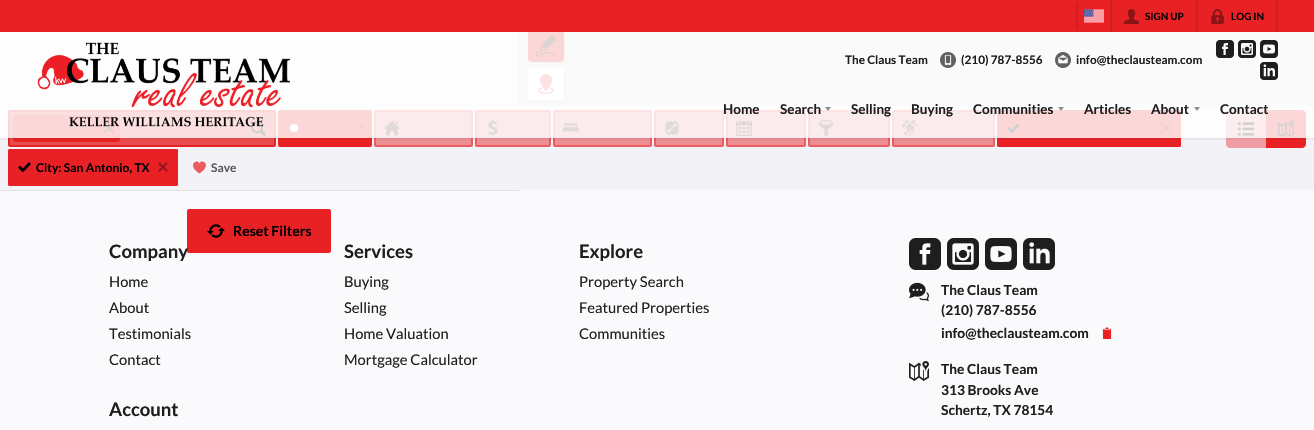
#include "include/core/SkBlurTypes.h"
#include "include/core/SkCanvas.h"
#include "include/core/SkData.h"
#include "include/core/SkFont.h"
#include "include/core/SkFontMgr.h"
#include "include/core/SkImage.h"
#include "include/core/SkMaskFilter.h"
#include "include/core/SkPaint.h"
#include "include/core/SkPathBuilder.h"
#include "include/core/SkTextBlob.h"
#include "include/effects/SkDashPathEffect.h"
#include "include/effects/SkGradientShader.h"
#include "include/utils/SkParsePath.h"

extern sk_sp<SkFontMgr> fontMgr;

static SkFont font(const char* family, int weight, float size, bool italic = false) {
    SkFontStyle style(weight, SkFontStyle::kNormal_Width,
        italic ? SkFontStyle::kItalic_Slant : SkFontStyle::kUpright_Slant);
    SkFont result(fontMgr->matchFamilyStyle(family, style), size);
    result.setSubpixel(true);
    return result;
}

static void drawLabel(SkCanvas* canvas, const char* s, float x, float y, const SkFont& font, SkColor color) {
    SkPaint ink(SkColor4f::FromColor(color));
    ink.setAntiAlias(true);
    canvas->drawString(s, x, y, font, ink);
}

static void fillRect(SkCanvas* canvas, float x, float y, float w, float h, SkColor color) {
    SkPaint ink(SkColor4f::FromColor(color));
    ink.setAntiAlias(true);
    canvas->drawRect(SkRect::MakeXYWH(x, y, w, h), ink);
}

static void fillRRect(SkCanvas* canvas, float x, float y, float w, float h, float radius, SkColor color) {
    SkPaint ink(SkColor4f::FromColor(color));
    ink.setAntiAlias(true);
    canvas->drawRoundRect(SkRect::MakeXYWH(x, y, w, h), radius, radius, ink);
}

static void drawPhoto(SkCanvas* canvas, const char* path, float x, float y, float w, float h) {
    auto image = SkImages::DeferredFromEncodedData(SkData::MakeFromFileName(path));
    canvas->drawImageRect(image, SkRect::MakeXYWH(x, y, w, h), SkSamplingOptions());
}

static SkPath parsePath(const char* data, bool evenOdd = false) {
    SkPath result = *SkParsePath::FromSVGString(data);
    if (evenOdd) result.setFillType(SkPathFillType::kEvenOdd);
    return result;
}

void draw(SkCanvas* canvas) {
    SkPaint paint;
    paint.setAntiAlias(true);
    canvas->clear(0xFFFAFAFC);
    fillRect(canvas, 0, 32, 518, 74, 0xFFF2F2F7);
    paint.setColor(0x1A000000);
    canvas->drawPath(parsePath("M1 190V191H519V133H518V190Z"), paint);
    fillRect(canvas, 0, 106, 1314, 84, 0xFFF2F2F7);
    paint.setColor(0xFFEE9EA3);
    canvas->drawPath(parsePath("M1230 110H1266V148H1230C1228 148 1226 146 1226 144V114C1226 112 1228 110 1230 110Z"), paint);
    drawPhoto(canvas, "assets/img11.png", 1238, 122, 16, 14);
    paint.setColor(0xFFE82125);
    canvas->drawPath(parsePath("M1266 110H1302C1304 110 1306 112 1306 114V144C1306 146 1304 148 1302 148H1266Z"), paint);
    drawPhoto(canvas, "assets/img12.png", 1278, 121, 16, 16);
    paint.setColor(0xFFEA4B4F);
    canvas->drawRoundRect(SkRect::MakeXYWH(9, 111, 266, 35), 1, 1, paint);
    paint.setStroke(true);
    paint.setStrokeWidth(2);
    paint.setColor(0xFFE82125);
    canvas->drawRoundRect(SkRect::MakeXYWH(9, 111, 266, 35), 1, 1, paint);
    fillRRect(canvas, 13, 115, 107, 27, 3, 0xFFE82125);
    drawPhoto(canvas, "assets/img13.png", 104, 123, 10, 10);
    drawPhoto(canvas, "assets/img14.png", 251, 121, 15, 15);
    paint.setStroke(false);
    canvas->drawRoundRect(SkRect::MakeXYWH(279, 111, 92, 35), 1, 1, paint);
    paint.setStroke(true);
    canvas->drawRoundRect(SkRect::MakeXYWH(279, 111, 92, 35), 1, 1, paint);
    paint.setStroke(false);
    paint.setColor(0xFFFFFFFF);
    canvas->drawCircle(294, 128, 4, paint);
    paint.setColor(0xFF971518);
    canvas->drawPath(parsePath("M358 126H364L361 130Z"), paint);
    paint.setColor(0xFFED8E92);
    canvas->drawRoundRect(SkRect::MakeXYWH(375, 111, 97, 35), 1, 1, paint);
    paint.setStroke(true);
    paint.setColor(0xFFEB5C60);
    canvas->drawRoundRect(SkRect::MakeXYWH(375, 111, 97, 35), 1, 1, paint);
    drawPhoto(canvas, "assets/img15.png", 384, 120, 16, 16);
    paint.setStroke(false);
    paint.setColor(0xFFB5B5B9);
    canvas->drawPath(parsePath("M459 126H465L462 130Z"), paint);
    paint.setColor(0xFFED8E92);
    canvas->drawRoundRect(SkRect::MakeXYWH(476, 111, 74, 35), 1, 1, paint);
    paint.setStroke(true);
    paint.setColor(0xFFEB5C60);
    canvas->drawRoundRect(SkRect::MakeXYWH(476, 111, 74, 35), 1, 1, paint);
    drawPhoto(canvas, "assets/img16.png", 488, 120, 10, 16);
    paint.setStroke(false);
    paint.setColor(0xFFB5B5B9);
    canvas->drawPath(parsePath("M537 126H543L540 130Z"), paint);
    paint.setColor(0xFFED8E92);
    canvas->drawRoundRect(SkRect::MakeXYWH(554, 111, 97, 35), 1, 1, paint);
    paint.setStroke(true);
    paint.setColor(0xFFEB5C60);
    canvas->drawRoundRect(SkRect::MakeXYWH(554, 111, 97, 35), 1, 1, paint);
    drawPhoto(canvas, "assets/img17.png", 563, 123, 16, 10);
    paint.setStroke(false);
    paint.setColor(0xFFB5B5B9);
    canvas->drawPath(parsePath("M638 126H644L641 130Z"), paint);
    paint.setColor(0xFFED8E92);
    canvas->drawRoundRect(SkRect::MakeXYWH(655, 111, 68, 35), 1, 1, paint);
    paint.setStroke(true);
    paint.setColor(0xFFEB5C60);
    canvas->drawRoundRect(SkRect::MakeXYWH(655, 111, 68, 35), 1, 1, paint);
    drawPhoto(canvas, "assets/img18.png", 665, 121, 14, 14);
    paint.setStroke(false);
    paint.setColor(0xFFB5B5B9);
    canvas->drawPath(parsePath("M710 126H716L713 130Z"), paint);
    paint.setColor(0xFFED8E92);
    canvas->drawRoundRect(SkRect::MakeXYWH(727, 111, 78, 35), 1, 1, paint);
    paint.setStroke(true);
    paint.setColor(0xFFEB5C60);
    canvas->drawRoundRect(SkRect::MakeXYWH(727, 111, 78, 35), 1, 1, paint);
    drawPhoto(canvas, "assets/img19.png", 736, 120, 16, 16);
    paint.setStroke(false);
    paint.setColor(0xFFB5B5B9);
    canvas->drawPath(parsePath("M792 126H798L795 130Z"), paint);
    paint.setColor(0xFFED8E92);
    canvas->drawRoundRect(SkRect::MakeXYWH(809, 111, 80, 35), 1, 1, paint);
    paint.setStroke(true);
    paint.setColor(0xFFEB5C60);
    canvas->drawRoundRect(SkRect::MakeXYWH(809, 111, 80, 35), 1, 1, paint);
    drawPhoto(canvas, "assets/img20.png", 819, 120, 14, 16);
    paint.setStroke(false);
    paint.setColor(0xFFB5B5B9);
    canvas->drawPath(parsePath("M876 126H882L879 130Z"), paint);
    paint.setColor(0xFFED8E92);
    canvas->drawRoundRect(SkRect::MakeXYWH(893, 111, 101, 35), 1, 1, paint);
    paint.setStroke(true);
    paint.setColor(0xFFEB5C60);
    canvas->drawRoundRect(SkRect::MakeXYWH(893, 111, 101, 35), 1, 1, paint);
    drawPhoto(canvas, "assets/img21.png", 902, 120, 16, 16);
    paint.setStroke(false);
    paint.setColor(0xFFB5B5B9);
    canvas->drawPath(parsePath("M981 126H987L984 130Z"), paint);
    fillRRect(canvas, 997, 110, 184, 37, 2, 0xFFE82125);
    paint.setColor(0xABE82125);
    canvas->drawRoundRect(SkRect::MakeXYWH(998, 111, 182, 35), 1, 1, paint);
    paint.setStroke(true);
    paint.setColor(0xFFE82125);
    canvas->drawRoundRect(SkRect::MakeXYWH(998, 111, 182, 35), 1, 1, paint);
    drawPhoto(canvas, "assets/img22.png", 1007, 123, 13, 11);
    drawPhoto(canvas, "assets/img23.png", 1161, 123, 10, 10);
    fillRect(canvas, 518, 32, 796, 74, 0xFFE5E3DF);
    paint.setStroke(false);
    paint.setColor(0x1A000000);
    paint.setMaskFilter(SkMaskFilter::MakeBlur(kNormal_SkBlurStyle, 1));
    canvas->drawRoundRect(SkRect::MakeXYWH(529, 31, 36, 32), 4, 4, paint);
    paint.setMaskFilter(nullptr);
    fillRRect(canvas, 528, 30, 36, 32, 4, 0xFFE82125);
    drawPhoto(canvas, "assets/img24.png", 535, 35, 22, 22);
    paint.setMaskFilter(SkMaskFilter::MakeBlur(kNormal_SkBlurStyle, 1));
    canvas->drawRoundRect(SkRect::MakeXYWH(529, 69, 36, 32), 4, 4, paint);
    paint.setMaskFilter(nullptr);
    fillRRect(canvas, 528, 68, 36, 32, 4, 0xFFFFFFFF);
    drawPhoto(canvas, "assets/img25.png", 538, 74, 16, 20);
    canvas->save();
    canvas->clipRect(SkRect::MakeXYWH(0, 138, 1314, 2));
    paint.setColor(0x14000000);
    paint.setMaskFilter(SkMaskFilter::MakeBlur(kNormal_SkBlurStyle, 1.5f));
    canvas->drawRect(SkRect::MakeXYWH(0, 33, 1314, 106), paint);
    paint.setMaskFilter(nullptr);
    canvas->restore();
    fillRect(canvas, 0, 0, 1314, 32, 0xFFE82125);
    fillRect(canvas, 1076, 2, 2, 28, 0xFFD11E21);
    drawPhoto(canvas, "assets/img1.png", 1084, 9, 20, 14);
    fillRect(canvas, 1276, 0, 2, 32, 0xFFD11E21);
    fillRect(canvas, 1110, 0, 2, 32, 0xFFD11E21);
    drawPhoto(canvas, "assets/img2.png", 1124, 9, 15, 15);
    SkFont font1 = font("Lato", 700, 10);
    drawLabel(canvas, "SIGN UP", 1145, 20, font1, 0xFF000000);
    fillRect(canvas, 1196, 0, 2, 32, 0xFFD11E21);
    drawPhoto(canvas, "assets/img3.png", 1211, 9, 13, 15);
    drawLabel(canvas, "LOG IN", 1231, 20, font1, 0xFF000000);
    fillRect(canvas, 0, 32, 1314, 106, 0xD1FFFFFF);
    drawPhoto(canvas, "assets/img4.png", 37, 42, 253, 85);
    SkFont font2 = font("Lato", 700, 11.75f);
    drawLabel(canvas, "The Claus Team", 845, 64, font2, 0xFF1E1E1E);
    drawPhoto(canvas, "assets/img5.png", 940, 52, 16, 16);
    drawLabel(canvas, "(210) 787-8556", 961, 64, font2, 0xFF1E1E1E);
    drawPhoto(canvas, "assets/img6.png", 1055, 52, 16, 16);
    drawLabel(canvas, "info@theclausteam.com", 1076, 64, font2, 0xFF1E1E1E);
    drawPhoto(canvas, "assets/img7.png", 1216, 40, 18, 18);
    drawPhoto(canvas, "assets/img8.png", 1238, 40, 18, 18);
    drawPhoto(canvas, "assets/img9.png", 1260, 40, 18, 18);
    drawPhoto(canvas, "assets/img10.png", 1260, 62, 18, 18);
    SkFont font3 = font("Lato", 700, 13.5f);
    drawLabel(canvas, "Home", 723, 114, font3, 0xFF1E1E1E);
    drawLabel(canvas, "Search", 780, 114, font3, 0xFF1E1E1E);
    paint.setColor(0xFF8D8D8E);
    canvas->drawPath(parsePath("M825 107H831L828 111Z"), paint);
    drawLabel(canvas, "Selling", 851, 114, font3, 0xFF1E1E1E);
    drawLabel(canvas, "Buying", 911, 114, font3, 0xFF1E1E1E);
    drawLabel(canvas, "Communities", 973, 114, font3, 0xFF1E1E1E);
    canvas->drawPath(parsePath("M1058 107H1064L1061 111Z"), paint);
    drawLabel(canvas, "Articles", 1084, 114, font3, 0xFF1E1E1E);
    drawLabel(canvas, "About", 1151, 114, font3, 0xFF1E1E1E);
    canvas->drawPath(parsePath("M1194 107H1200L1197 111Z"), paint);
    drawLabel(canvas, "Contact", 1220, 114, font3, 0xFF1E1E1E);
    fillRRect(canvas, 8, 149, 170, 37, 2, 0xFFE82125);
    paint.setColor(0xABE82125);
    canvas->drawRoundRect(SkRect::MakeXYWH(9, 150, 168, 35), 1, 1, paint);
    paint.setStroke(true);
    paint.setColor(0xFFE82125);
    canvas->drawRoundRect(SkRect::MakeXYWH(9, 150, 168, 35), 1, 1, paint);
    drawPhoto(canvas, "assets/img22.png", 18, 162, 13, 11);
    SkFont font4 = font("Lato", 700, 12);
    drawLabel(canvas, "City: San Antonio, TX", 36, 172, font4, 0xFF000000);
    drawPhoto(canvas, "assets/img23.png", 158, 162, 10, 10);
    paint.setStroke(false);
    paint.setColor(0xFFEB5C60);
    canvas->drawPath(parsePath("M199.5 163.5C197.5 158 186 165 199.5 173.5C213 165 201.5 158 199.5 163.5Z"), paint);
    drawLabel(canvas, "Save", 211, 172, font4, 0xFF59595B);
    paint.setColor(0xFFE82125);
    canvas->drawRoundRect(SkRect::MakeXYWH(188, 210, 142, 42), 1, 1, paint);
    paint.setStroke(true);
    canvas->drawRoundRect(SkRect::MakeXYWH(188, 210, 142, 42), 1, 1, paint);
    drawPhoto(canvas, "assets/img26.png", 207, 224, 18, 14);
    SkFont font5 = font("Lato", 700, 14);
    drawLabel(canvas, "Reset Filters", 233, 236, font5, 0xFF000000);
    SkFont font6 = font("Lato", 700, 18.5f);
    drawLabel(canvas, "Company", 109, 258, font6, 0xFF1E1E1E);
    SkFont font7 = font("Lato", 400, 14.75f);
    drawLabel(canvas, "Home", 109, 287, font7, 0xFF1E1E1E);
    drawLabel(canvas, "About", 109, 313, font7, 0xFF1E1E1E);
    drawLabel(canvas, "Testimonials", 109, 339, font7, 0xFF1E1E1E);
    drawLabel(canvas, "Contact", 109, 365, font7, 0xFF1E1E1E);
    drawLabel(canvas, "Account", 109, 416, font6, 0xFF1E1E1E);
    drawLabel(canvas, "Services", 344, 258, font6, 0xFF1E1E1E);
    drawLabel(canvas, "Buying", 344, 287, font7, 0xFF1E1E1E);
    drawLabel(canvas, "Selling", 344, 313, font7, 0xFF1E1E1E);
    drawLabel(canvas, "Home Valuation", 344, 339, font7, 0xFF1E1E1E);
    drawLabel(canvas, "Mortgage Calculator", 344, 365, font7, 0xFF1E1E1E);
    drawLabel(canvas, "Explore", 579, 258, font6, 0xFF1E1E1E);
    drawLabel(canvas, "Property Search", 579, 287, font7, 0xFF1E1E1E);
    drawLabel(canvas, "Featured Properties", 579, 313, font7, 0xFF1E1E1E);
    drawLabel(canvas, "Communities", 579, 339, font7, 0xFF1E1E1E);
    drawPhoto(canvas, "assets/img27.png", 909, 238, 32, 32);
    drawPhoto(canvas, "assets/img28.png", 947, 238, 32, 32);
    drawPhoto(canvas, "assets/img29.png", 985, 238, 32, 32);
    drawPhoto(canvas, "assets/img30.png", 1023, 238, 32, 32);
    drawPhoto(canvas, "assets/img31.png", 909, 282, 20, 20);
    SkFont font8 = font("Lato", 700, 13.75f);
    drawLabel(canvas, "The Claus Team", 941, 295, font8, 0xFF1E1E1E);
    drawLabel(canvas, "(210) 787-8556", 941, 315, font8, 0xFF1E1E1E);
    drawLabel(canvas, "info@theclausteam.com", 941, 338, font8, 0xFF1E1E1E);
    drawPhoto(canvas, "assets/img32.png", 1102, 327, 10, 12);
    drawPhoto(canvas, "assets/img33.png", 909, 361, 20, 20);
    drawLabel(canvas, "The Claus Team", 941, 374, font8, 0xFF1E1E1E);
    drawLabel(canvas, "313 Brooks Ave", 941, 395, font8, 0xFF1E1E1E);
    drawLabel(canvas, "Schertz, TX 78154", 941, 415, font8, 0xFF1E1E1E);
}
